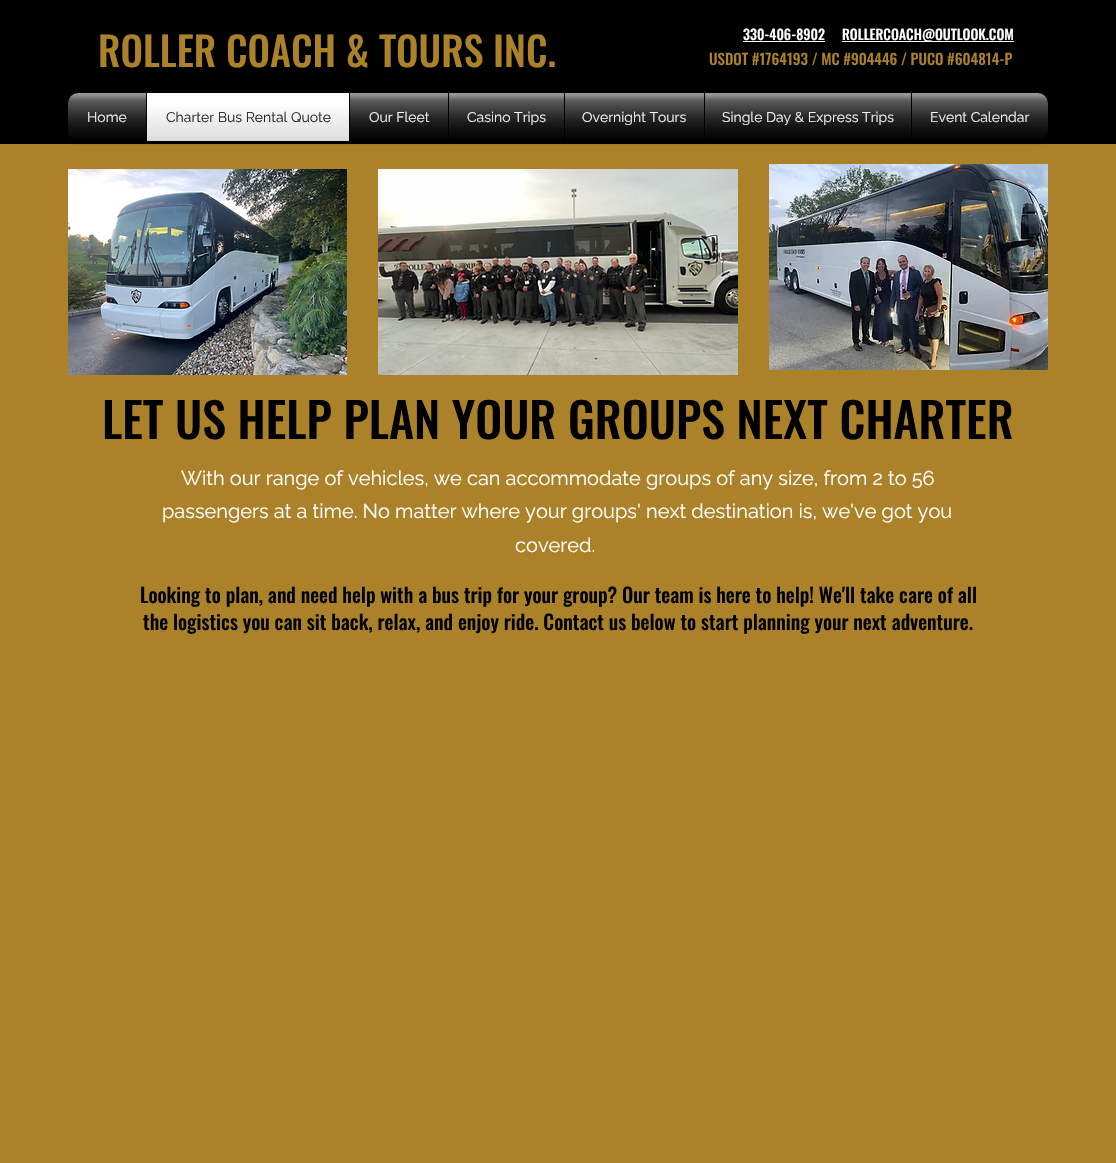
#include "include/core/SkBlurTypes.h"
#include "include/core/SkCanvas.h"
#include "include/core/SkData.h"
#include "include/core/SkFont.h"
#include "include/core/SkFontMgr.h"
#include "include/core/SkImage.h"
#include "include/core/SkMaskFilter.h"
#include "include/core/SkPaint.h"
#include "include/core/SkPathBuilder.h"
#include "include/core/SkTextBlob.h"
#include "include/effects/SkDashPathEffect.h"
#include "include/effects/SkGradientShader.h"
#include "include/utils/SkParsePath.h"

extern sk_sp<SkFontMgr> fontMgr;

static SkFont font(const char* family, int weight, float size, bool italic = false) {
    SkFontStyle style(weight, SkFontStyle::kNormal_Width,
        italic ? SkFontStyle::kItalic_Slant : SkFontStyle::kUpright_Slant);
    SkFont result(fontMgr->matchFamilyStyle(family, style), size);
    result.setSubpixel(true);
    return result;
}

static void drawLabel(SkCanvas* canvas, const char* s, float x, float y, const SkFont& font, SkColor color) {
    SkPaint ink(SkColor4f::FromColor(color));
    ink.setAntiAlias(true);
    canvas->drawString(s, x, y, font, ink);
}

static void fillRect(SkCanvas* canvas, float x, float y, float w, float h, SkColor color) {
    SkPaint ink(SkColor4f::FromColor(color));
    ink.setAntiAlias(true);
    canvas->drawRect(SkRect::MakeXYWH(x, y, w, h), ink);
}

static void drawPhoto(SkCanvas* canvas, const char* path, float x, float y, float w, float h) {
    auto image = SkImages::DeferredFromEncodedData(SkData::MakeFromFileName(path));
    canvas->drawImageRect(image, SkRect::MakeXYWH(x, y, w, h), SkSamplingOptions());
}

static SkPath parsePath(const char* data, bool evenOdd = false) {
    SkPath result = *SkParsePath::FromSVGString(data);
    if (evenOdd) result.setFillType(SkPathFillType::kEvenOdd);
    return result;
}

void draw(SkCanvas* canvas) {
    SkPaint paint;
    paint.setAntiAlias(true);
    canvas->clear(0xFF000000);
    SkFont font1 = font("Oswald", 500, 40);
    drawLabel(canvas, "ROLLER COACH & TOURS INC.", 98, 67, font1, 0xFFAB8229);
    SkFont font2 = font("Oswald", 500, 14);
    drawLabel(canvas, "330-406-8902", 743, 40, font2, 0xFFFFFFFF);
    fillRect(canvas, 743, 41, 82, 1, 0xFFFFFFFF);
    fillRect(canvas, 842, 41, 172, 1, 0xFFFFFFFF);
    drawLabel(canvas, "ROLLERCOACH@OUTLOOK.COM", 842, 40, font2, 0xFFFFFFFF);
    SkFont font3 = font("Oswald", 500, 15);
    drawLabel(canvas, "USDOT #1764193 / MC #904446 / PUCO #604814-P", 709, 65, font3, 0xFFAB8229);
    fillRect(canvas, 0, 144, 1116, 1019, 0xFFAB8229);
    paint.setColor(0x99000000);
    paint.setMaskFilter(SkMaskFilter::MakeBlur(kNormal_SkBlurStyle, 2));
    canvas->drawRoundRect(SkRect::MakeXYWH(68, 94, 980, 48), 10, 10, paint);
    paint.setMaskFilter(nullptr);
    drawPhoto(canvas, "assets/img1.png", 68, 93, 980, 43);
    paint.setColor(0xFF000000);
    canvas->drawPath(parsePath("M78 93H146V141H78C72.5 141 68 136.5 68 131V103C68 97.5 72.5 93 78 93Z"), paint);
    SkFont font4 = font("Raleway", 400, 14);
    drawLabel(canvas, "Home", 87, 122, font4, 0xFFFFFFFF);
    drawPhoto(canvas, "assets/img2.png", 68, 93, 78, 46);
    drawPhoto(canvas, "assets/img3.png", 88, 112, 39, 11);
    fillRect(canvas, 147, 93, 202, 48, 0xFFFFFFFF);
    fillRect(canvas, 146, 93, 1, 48, 0xFF000000);
    drawLabel(canvas, "Charter Bus Rental Quote", 166, 122, font4, 0xFF000000);
    drawPhoto(canvas, "assets/img4.png", 166, 111, 164, 11);
    drawPhoto(canvas, "assets/img5.png", 147, 107, 202, 34);
    fillRect(canvas, 349, 93, 562, 43, 0xFF000000);
    drawLabel(canvas, "Our Fleet", 369, 122, font4, 0xFFFFFFFF);
    drawPhoto(canvas, "assets/img6.png", 350, 93, 98, 46);
    drawPhoto(canvas, "assets/img7.png", 369, 112, 60, 10);
    drawLabel(canvas, "Casino Trips", 467, 122, font4, 0xFFFFFFFF);
    drawPhoto(canvas, "assets/img8.png", 449, 93, 115, 46);
    drawPhoto(canvas, "assets/img9.png", 467, 112, 79, 13);
    drawLabel(canvas, "Overnight Tours", 582, 122, font4, 0xFFFFFFFF);
    drawPhoto(canvas, "assets/img10.png", 565, 93, 139, 46);
    drawPhoto(canvas, "assets/img11.png", 583, 112, 103, 13);
    drawLabel(canvas, "Single Day & Express Trips", 722, 122, font4, 0xFFFFFFFF);
    drawPhoto(canvas, "assets/img12.png", 705, 93, 206, 46);
    drawPhoto(canvas, "assets/img13.png", 722, 112, 172, 13);
    canvas->drawPath(parsePath("M911 93H1038C1043.5 93 1048 97.5 1048 103V131C1048 136.5 1043.5 141 1038 141H911Z"), paint);
    drawLabel(canvas, "Event Calendar", 930, 122, font4, 0xFFFFFFFF);
    drawPhoto(canvas, "assets/img14.png", 912, 93, 136, 46);
    drawPhoto(canvas, "assets/img15.png", 931, 112, 99, 11);
    drawPhoto(canvas, "assets/img16.png", 68, 169, 279, 206);
    drawPhoto(canvas, "assets/img17.png", 378, 169, 360, 206);
    drawPhoto(canvas, "assets/img18.png", 769, 164, 279, 206);
    SkFont font5 = font("Oswald", 500, 48);
    drawLabel(canvas, "LET US HELP PLAN YOUR GROUPS NEXT CHARTER", 102, 439, font5, 0xFF000000);
    SkFont font6 = font("Raleway", 400, 20);
    drawLabel(canvas, "With our range of vehicles, we can accommodate groups of any size, from 2 to 56", 181, 485, font6, 0xFFFFFFFF);
    drawLabel(canvas, "passengers at a time. No matter where your groups' next destination is, we've got you", 162, 518, font6, 0xFFFFFFFF);
    drawLabel(canvas, "covered.", 515, 552, font6, 0xFFFFFFFF);
    SkFont font7 = font("Oswald", 500, 20);
    drawLabel(canvas, "Looking to plan, and need help with a bus trip for your group? Our team is here to help! We'll take care of all", 140, 603, font7, 0xFF000000);
    drawLabel(canvas, "the logistics you can sit back, relax, and enjoy ride. Contact us below to start planning your next adventure.", 143, 630, font7, 0xFF000000);
}
